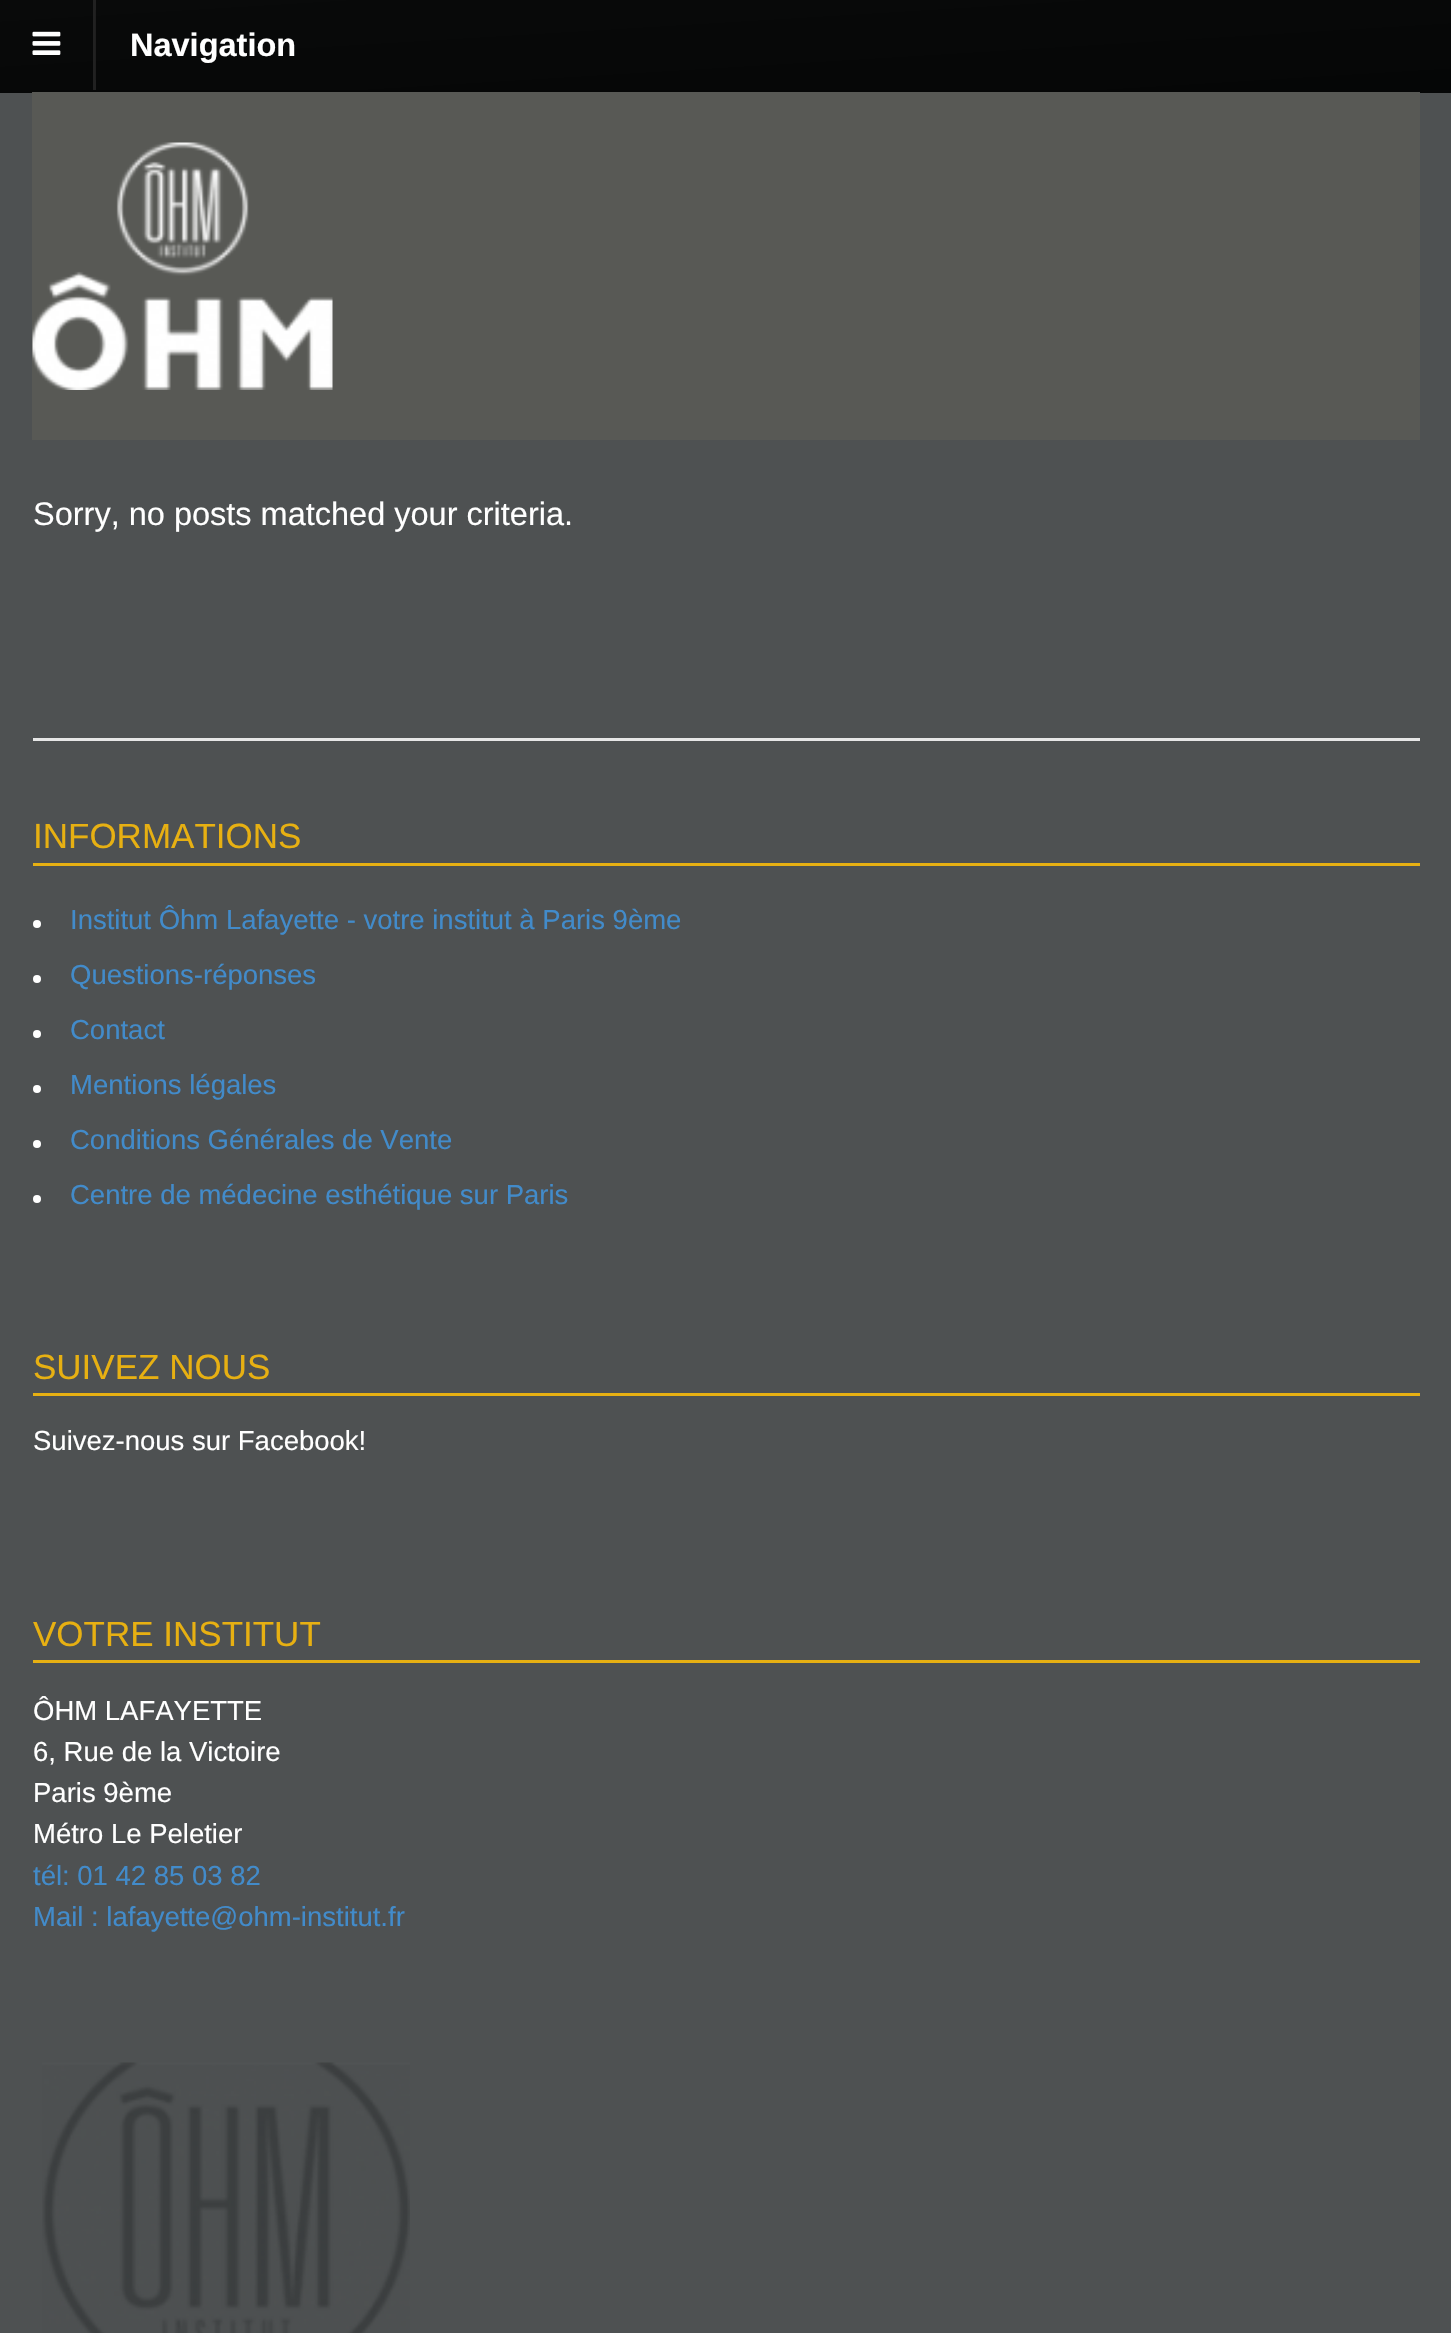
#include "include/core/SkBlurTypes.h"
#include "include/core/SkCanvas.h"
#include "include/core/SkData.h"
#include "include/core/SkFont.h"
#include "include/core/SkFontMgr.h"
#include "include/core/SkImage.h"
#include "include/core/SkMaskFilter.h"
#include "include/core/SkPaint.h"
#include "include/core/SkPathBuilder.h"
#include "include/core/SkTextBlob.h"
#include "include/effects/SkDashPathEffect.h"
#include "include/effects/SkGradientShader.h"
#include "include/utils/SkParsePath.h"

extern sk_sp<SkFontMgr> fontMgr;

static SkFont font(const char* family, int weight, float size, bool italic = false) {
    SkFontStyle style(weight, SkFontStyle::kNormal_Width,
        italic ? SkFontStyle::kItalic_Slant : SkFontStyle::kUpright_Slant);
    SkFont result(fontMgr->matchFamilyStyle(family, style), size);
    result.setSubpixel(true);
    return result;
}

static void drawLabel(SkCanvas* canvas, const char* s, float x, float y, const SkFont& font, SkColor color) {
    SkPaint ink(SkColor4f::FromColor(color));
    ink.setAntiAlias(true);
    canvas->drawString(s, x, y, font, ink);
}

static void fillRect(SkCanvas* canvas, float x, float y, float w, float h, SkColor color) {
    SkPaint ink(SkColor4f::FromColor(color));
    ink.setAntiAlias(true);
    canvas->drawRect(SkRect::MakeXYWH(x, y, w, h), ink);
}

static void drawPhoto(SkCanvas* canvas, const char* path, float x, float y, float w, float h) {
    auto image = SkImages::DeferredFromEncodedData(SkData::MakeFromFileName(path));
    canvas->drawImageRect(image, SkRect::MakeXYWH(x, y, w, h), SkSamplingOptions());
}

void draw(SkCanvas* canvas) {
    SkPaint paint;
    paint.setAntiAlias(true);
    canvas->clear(0xFF4E5152);
    {
        const SkColor colors[] = {0xFF090A0A, 0xFF050606};
        const float stops[] = {0, 1};
        const SkPoint ends[] = {{721, -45}, {732, 135}};
        paint.setShader(SkGradientShader::MakeLinear(ends, colors, stops, 2, SkTileMode::kClamp));
        paint.setAlpha(255);
    }
    canvas->drawRect(SkRect::MakeXYWH(0, 0, 1451, 90), paint);
    fillRect(canvas, 0, 90, 1451, 3, 0xFF060707);
    fillRect(canvas, 93, 0, 3, 90, 0xFF212121);
    drawPhoto(canvas, "assets/img1.png", 32, 31, 29, 24);
    SkFont font1 = font("Liberation Sans", 700, 32.5f);
    drawLabel(canvas, "Navigation", 130, 56, font1, 0xFFFFFFFF);
    fillRect(canvas, 95, 10, 1, 70, 0x1A000000);
    fillRect(canvas, 32, 92, 1388, 348, 0xFF585955);
    drawPhoto(canvas, "assets/img2.png", 32, 142, 301, 248);
    SkFont font2 = font("Liberation Sans", 400, 32.5f);
    drawLabel(canvas, "Sorry, no posts matched your criteria.", 33, 525, font2, 0xFFFFFFFF);
    fillRect(canvas, 33, 738, 1387, 3, 0xFFE6E6E6);
    fillRect(canvas, 33, 863, 1387, 3, 0xFFE7B012);
    SkFont font3 = font("Liberation Sans", 400, 35);
    drawLabel(canvas, "INFORMATIONS", 33, 848, font3, 0xFFE7B012);
    paint.setShader(nullptr);
    paint.setColor(0xFFFFFFFF);
    canvas->drawCircle(37, 924, 4, paint);
    SkFont font4 = font("Liberation Sans", 400, 27.5f);
    drawLabel(canvas, "Institut Ôhm Lafayette - votre institut à Paris 9ème", 70, 929, font4, 0xFF428BCA);
    canvas->drawCircle(37, 979, 4, paint);
    drawLabel(canvas, "Questions-réponses", 70, 984, font4, 0xFF428BCA);
    canvas->drawCircle(37, 1034, 4, paint);
    drawLabel(canvas, "Contact", 70, 1039, font4, 0xFF428BCA);
    canvas->drawCircle(37, 1089, 4, paint);
    drawLabel(canvas, "Mentions légales", 70, 1094, font4, 0xFF428BCA);
    canvas->drawCircle(37, 1144, 4, paint);
    drawLabel(canvas, "Conditions Générales de Vente", 70, 1149, font4, 0xFF428BCA);
    canvas->drawCircle(37, 1199, 4, paint);
    drawLabel(canvas, "Centre de médecine esthétique sur Paris", 70, 1204, font4, 0xFF428BCA);
    fillRect(canvas, 33, 1393, 1387, 3, 0xFFE7B012);
    drawLabel(canvas, "SUIVEZ NOUS", 33, 1379, font3, 0xFFE7B012);
    drawLabel(canvas, "Suivez-nous sur Facebook!", 33, 1450, font4, 0xFFFFFFFF);
    fillRect(canvas, 33, 1660, 1387, 3, 0xFFE7B012);
    drawLabel(canvas, "VOTRE INSTITUT", 33, 1646, font3, 0xFFE7B012);
    drawLabel(canvas, "ÔHM LAFAYETTE", 33, 1720, font4, 0xFFFFFFFF);
    drawLabel(canvas, "6, Rue de la Victoire", 33, 1761, font4, 0xFFFFFFFF);
    drawLabel(canvas, "Paris 9ème", 33, 1802, font4, 0xFFFFFFFF);
    drawLabel(canvas, "Métro Le Peletier", 33, 1843, font4, 0xFFFFFFFF);
    drawLabel(canvas, "tél: 01 42 85 03 82", 33, 1885, font4, 0xFF428BCA);
    drawLabel(canvas, "Mail : lafayette@ohm-institut.fr", 33, 1926, font4, 0xFF428BCA);
    drawPhoto(canvas, "assets/img3.png", 42, 2062, 368, 271);
}
